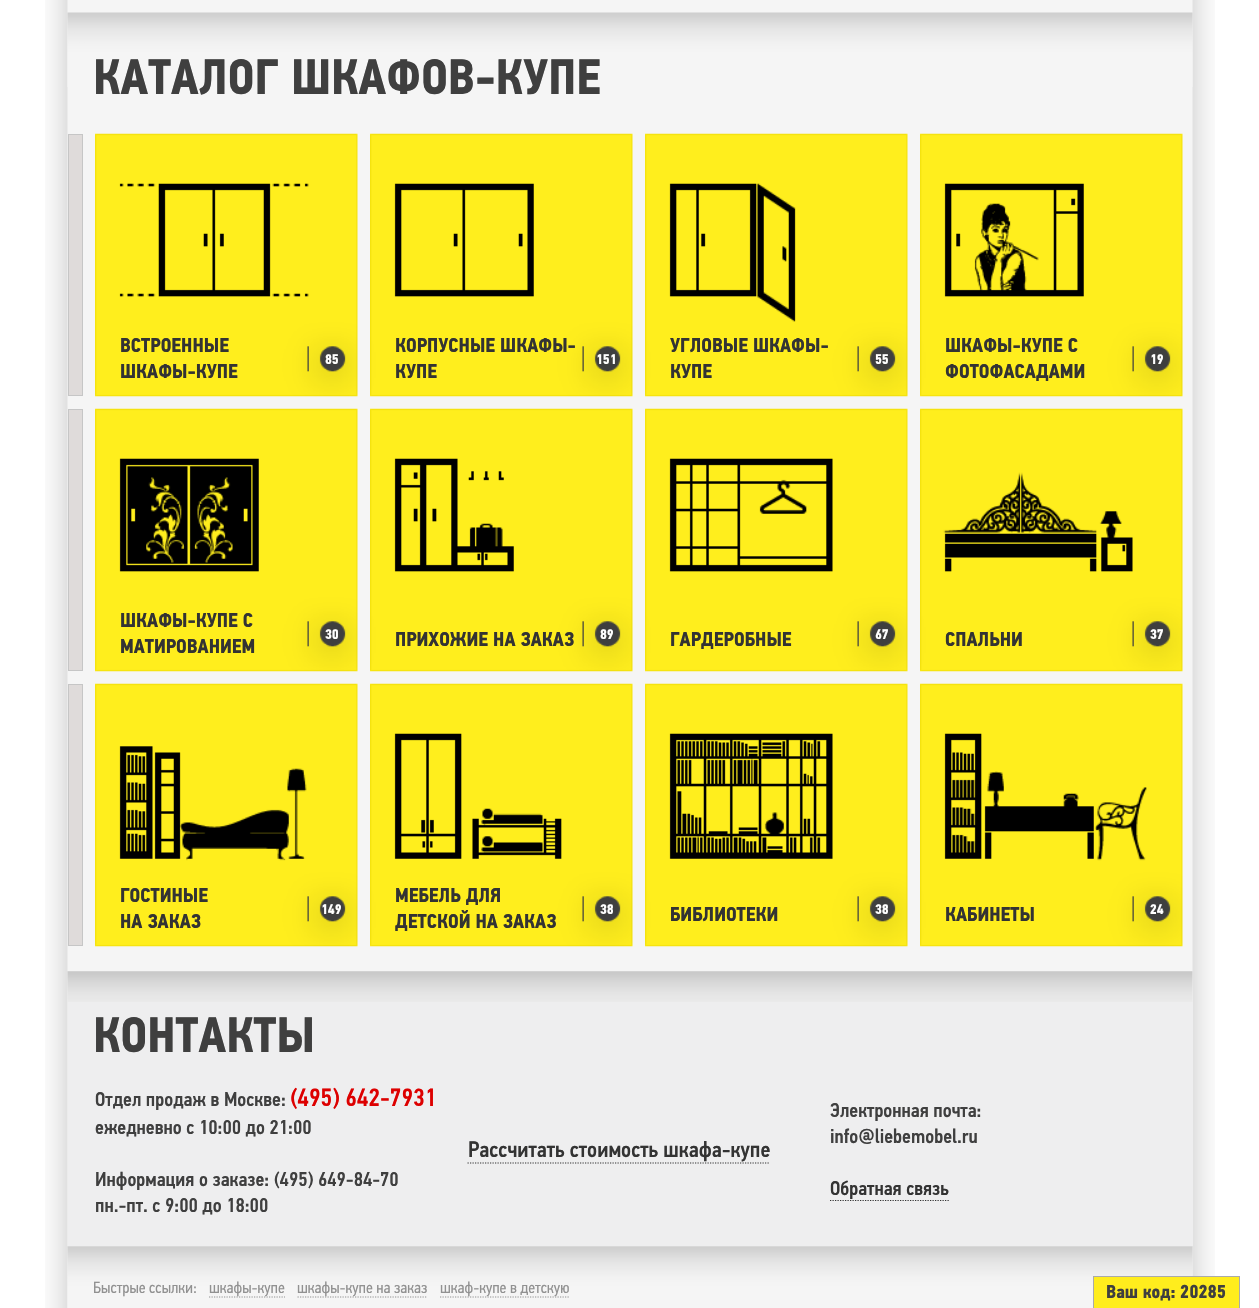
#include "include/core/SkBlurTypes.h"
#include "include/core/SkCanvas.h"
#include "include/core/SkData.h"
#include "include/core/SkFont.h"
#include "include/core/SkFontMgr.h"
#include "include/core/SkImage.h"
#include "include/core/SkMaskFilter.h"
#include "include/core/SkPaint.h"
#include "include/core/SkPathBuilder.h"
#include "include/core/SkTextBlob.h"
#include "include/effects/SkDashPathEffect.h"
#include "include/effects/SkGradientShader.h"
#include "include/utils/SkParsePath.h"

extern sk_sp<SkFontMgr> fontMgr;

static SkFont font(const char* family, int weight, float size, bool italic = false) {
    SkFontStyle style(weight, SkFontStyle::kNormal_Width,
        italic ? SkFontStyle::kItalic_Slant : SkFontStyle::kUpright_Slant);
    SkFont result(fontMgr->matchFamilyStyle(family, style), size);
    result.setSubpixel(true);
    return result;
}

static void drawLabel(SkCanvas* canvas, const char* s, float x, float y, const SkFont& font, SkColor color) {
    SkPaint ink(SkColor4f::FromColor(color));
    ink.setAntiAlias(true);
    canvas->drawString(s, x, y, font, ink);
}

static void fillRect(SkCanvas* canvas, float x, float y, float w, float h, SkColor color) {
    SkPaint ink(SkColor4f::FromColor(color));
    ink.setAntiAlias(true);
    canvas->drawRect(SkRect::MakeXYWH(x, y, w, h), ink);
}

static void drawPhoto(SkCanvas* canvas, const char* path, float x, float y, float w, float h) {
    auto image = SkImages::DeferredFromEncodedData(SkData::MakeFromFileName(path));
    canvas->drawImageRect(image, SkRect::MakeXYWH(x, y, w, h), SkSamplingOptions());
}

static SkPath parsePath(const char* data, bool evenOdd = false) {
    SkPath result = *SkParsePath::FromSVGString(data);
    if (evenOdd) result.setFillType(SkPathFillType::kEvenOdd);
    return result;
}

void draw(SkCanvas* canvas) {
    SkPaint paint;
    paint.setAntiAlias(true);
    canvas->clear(0xFFFFFFFF);
    drawPhoto(canvas, "assets/img1.png", 45, 0, 1170, 1308);
    drawPhoto(canvas, "assets/img2.png", 67, 12, 1126, 75);
    SkFont font1 = font("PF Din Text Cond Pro", 700, 50);
    drawLabel(canvas, "КАТАЛОГ ШКАФОВ-КУПЕ", 93, 94, font1, 0xFF3F3F3F);
    paint.setColor(0xFFDFDBDA);
    canvas->drawRect(SkRect::MakeXYWH(68.5f, 134.5f, 14, 261), paint);
    paint.setStroke(true);
    paint.setStrokeWidth(1);
    paint.setColor(0xFFC6C6C6);
    canvas->drawRect(SkRect::MakeXYWH(68.5f, 134.5f, 14, 261), paint);
    drawPhoto(canvas, "assets/img3.png", 95, 133, 263, 264);
    SkFont font2 = font("PF Din Text Cond Pro", 700, 20);
    drawLabel(canvas, "ВСТРОЕННЫЕ", 120, 352, font2, 0xFF333333);
    drawLabel(canvas, "ШКАФЫ-КУПЕ", 120, 378, font2, 0xFF333333);
    SkFont font3 = font("PF Din Text Cond Pro", 700, 14);
    drawLabel(canvas, "85", 325, 364, font3, 0xFFFFFFFF);
    drawPhoto(canvas, "assets/img4.png", 370, 133, 263, 264);
    drawLabel(canvas, "КОРПУСНЫЕ ШКАФЫ-", 395, 352, font2, 0xFF333333);
    drawLabel(canvas, "КУПЕ", 395, 378, font2, 0xFF333333);
    drawLabel(canvas, "151", 596, 364, font3, 0xFFFFFFFF);
    drawPhoto(canvas, "assets/img5.png", 645, 133, 263, 264);
    drawLabel(canvas, "УГЛОВЫЕ ШКАФЫ-", 670, 352, font2, 0xFF333333);
    drawLabel(canvas, "КУПЕ", 670, 378, font2, 0xFF333333);
    drawLabel(canvas, "55", 875, 364, font3, 0xFFFFFFFF);
    drawPhoto(canvas, "assets/img6.png", 920, 133, 263, 264);
    drawLabel(canvas, "ШКАФЫ-КУПЕ С", 945, 352, font2, 0xFF333333);
    drawLabel(canvas, "ФОТОФАСАДАМИ", 945, 378, font2, 0xFF333333);
    drawLabel(canvas, "19", 1150, 364, font3, 0xFFFFFFFF);
    paint.setStroke(false);
    paint.setColor(0xFFDFDBDA);
    canvas->drawRect(SkRect::MakeXYWH(68.5f, 409.5f, 14, 261), paint);
    paint.setStroke(true);
    paint.setColor(0xFFC6C6C6);
    canvas->drawRect(SkRect::MakeXYWH(68.5f, 409.5f, 14, 261), paint);
    drawPhoto(canvas, "assets/img7.png", 95, 408, 263, 264);
    drawLabel(canvas, "ШКАФЫ-КУПЕ С", 120, 627, font2, 0xFF333333);
    drawLabel(canvas, "МАТИРОВАНИЕМ", 120, 653, font2, 0xFF333333);
    drawLabel(canvas, "30", 325, 639, font3, 0xFFFFFFFF);
    drawPhoto(canvas, "assets/img8.png", 370, 408, 263, 264);
    drawLabel(canvas, "ПРИХОЖИЕ НА ЗАКАЗ", 395, 646, font2, 0xFF333333);
    drawLabel(canvas, "89", 600, 639, font3, 0xFFFFFFFF);
    drawPhoto(canvas, "assets/img9.png", 645, 408, 263, 264);
    drawLabel(canvas, "ГАРДЕРОБНЫЕ", 670, 646, font2, 0xFF333333);
    drawLabel(canvas, "67", 875, 639, font3, 0xFFFFFFFF);
    drawPhoto(canvas, "assets/img10.png", 920, 408, 263, 264);
    drawLabel(canvas, "СПАЛЬНИ", 945, 646, font2, 0xFF333333);
    drawLabel(canvas, "37", 1150, 639, font3, 0xFFFFFFFF);
    paint.setStroke(false);
    paint.setColor(0xFFDFDBDA);
    canvas->drawRect(SkRect::MakeXYWH(68.5f, 684.5f, 14, 261), paint);
    paint.setStroke(true);
    paint.setColor(0xFFC6C6C6);
    canvas->drawRect(SkRect::MakeXYWH(68.5f, 684.5f, 14, 261), paint);
    drawPhoto(canvas, "assets/img11.png", 95, 683, 263, 264);
    drawLabel(canvas, "ГОСТИНЫЕ", 120, 902, font2, 0xFF333333);
    drawLabel(canvas, "НА ЗАКАЗ", 120, 928, font2, 0xFF333333);
    drawLabel(canvas, "149", 321, 914, font3, 0xFFFFFFFF);
    drawPhoto(canvas, "assets/img12.png", 370, 683, 263, 264);
    drawLabel(canvas, "МЕБЕЛЬ ДЛЯ", 395, 902, font2, 0xFF333333);
    drawLabel(canvas, "ДЕТСКОЙ НА ЗАКАЗ", 395, 928, font2, 0xFF333333);
    drawLabel(canvas, "38", 600, 914, font3, 0xFFFFFFFF);
    drawPhoto(canvas, "assets/img13.png", 645, 683, 263, 264);
    drawLabel(canvas, "БИБЛИОТЕКИ", 670, 921, font2, 0xFF333333);
    drawLabel(canvas, "38", 875, 914, font3, 0xFFFFFFFF);
    drawPhoto(canvas, "assets/img14.png", 920, 683, 263, 264);
    drawLabel(canvas, "КАБИНЕТЫ", 945, 921, font2, 0xFF333333);
    drawLabel(canvas, "24", 1150, 914, font3, 0xFFFFFFFF);
    fillRect(canvas, 68, 971, 1125, 275, 0xFFEEEEEF);
    drawPhoto(canvas, "assets/img15.png", 67, 971, 1126, 31);
    drawLabel(canvas, "КОНТАКТЫ", 93, 1052, font1, 0xFF3F3F3F);
    SkFont font4 = font("PF Din Text Cond Pro", 500, 20);
    drawLabel(canvas, "Отдел продаж в Москве:", 95, 1106, font4, 0xFF3F3F3F);
    SkFont font5 = font("PF Din Text Cond Pro", 500, 25);
    drawLabel(canvas, "(495) 642-7931", 290, 1106, font5, 0xFFDD0000);
    drawLabel(canvas, "ежедневно с 10:00 до 21:00", 95, 1134, font4, 0xFF3F3F3F);
    drawLabel(canvas, "Информация о заказе: (495) 649-84-70", 95, 1186, font4, 0xFF3F3F3F);
    drawLabel(canvas, "пн.-пт. с 9:00 до 18:00", 95, 1212, font4, 0xFF3F3F3F);
    SkFont font6 = font("PF Din Text Cond Pro", 500, 22.5f);
    drawLabel(canvas, "Рассчитать стоимость шкафа-купе", 468, 1157, font6, 0xFF333333);
    paint.setStrokeWidth(1.2f);
    paint.setColor(0xFF333333);
    paint.setPathEffect(SkDashPathEffect::Make({{1.25f, 1.25f}}, 0));
    canvas->drawPath(parsePath("M467.5 1163H770"), paint);
    paint.setPathEffect(nullptr);
    drawLabel(canvas, "Электронная почта:", 830, 1117, font4, 0xFF3F3F3F);
    drawLabel(canvas, "info@liebemobel.ru", 830, 1143, font4, 0xFF3F3F3F);
    drawLabel(canvas, "Обратная связь", 830, 1195, font4, 0xFF333333);
    paint.setPathEffect(SkDashPathEffect::Make({{1.25f, 1.25f}}, 0));
    canvas->drawPath(parsePath("M830 1200.5H949"), paint);
    paint.setPathEffect(nullptr);
    drawPhoto(canvas, "assets/img16.png", 67, 1246, 1126, 62);
    SkFont font7 = font("PF Din Text Cond Pro", 400, 16.25f);
    drawLabel(canvas, "Быстрые ссылки:", 93, 1293, font7, 0xFF919191);
    paint.setColor(0xFF919191);
    paint.setPathEffect(SkDashPathEffect::Make({{1.25f, 1.25f}}, 0));
    canvas->drawPath(parsePath("M209 1297H285"), paint);
    paint.setPathEffect(nullptr);
    drawLabel(canvas, "шкафы-купе", 209, 1293, font7, 0xFF919191);
    paint.setPathEffect(SkDashPathEffect::Make({{1.25f, 1.25f}}, 0));
    canvas->drawPath(parsePath("M297.5 1297H427.5"), paint);
    paint.setPathEffect(nullptr);
    drawLabel(canvas, "шкафы-купе на заказ", 297, 1293, font7, 0xFF919191);
    paint.setPathEffect(SkDashPathEffect::Make({{1.25f, 1.25f}}, 0));
    canvas->drawPath(parsePath("M440 1297H570"), paint);
    paint.setPathEffect(nullptr);
    drawLabel(canvas, "шкаф-купе в детскую", 440, 1293, font7, 0xFF919191);
    fillRect(canvas, 1094, 1277, 145, 31, 0xFFFFED1D);
    fillRect(canvas, 1093, 1276, 147, 1, 0xFFAAAAAA);
    fillRect(canvas, 1239, 1276, 1, 32, 0xFFAAAAAA);
    fillRect(canvas, 1093, 1276, 1, 32, 0xFFAAAAAA);
    SkFont font8 = font("PF Din Text Cond Pro", 700, 18.75f);
    drawLabel(canvas, "Ваш код: 20285", 1106, 1298, font8, 0xFF3F3F3F);
}
